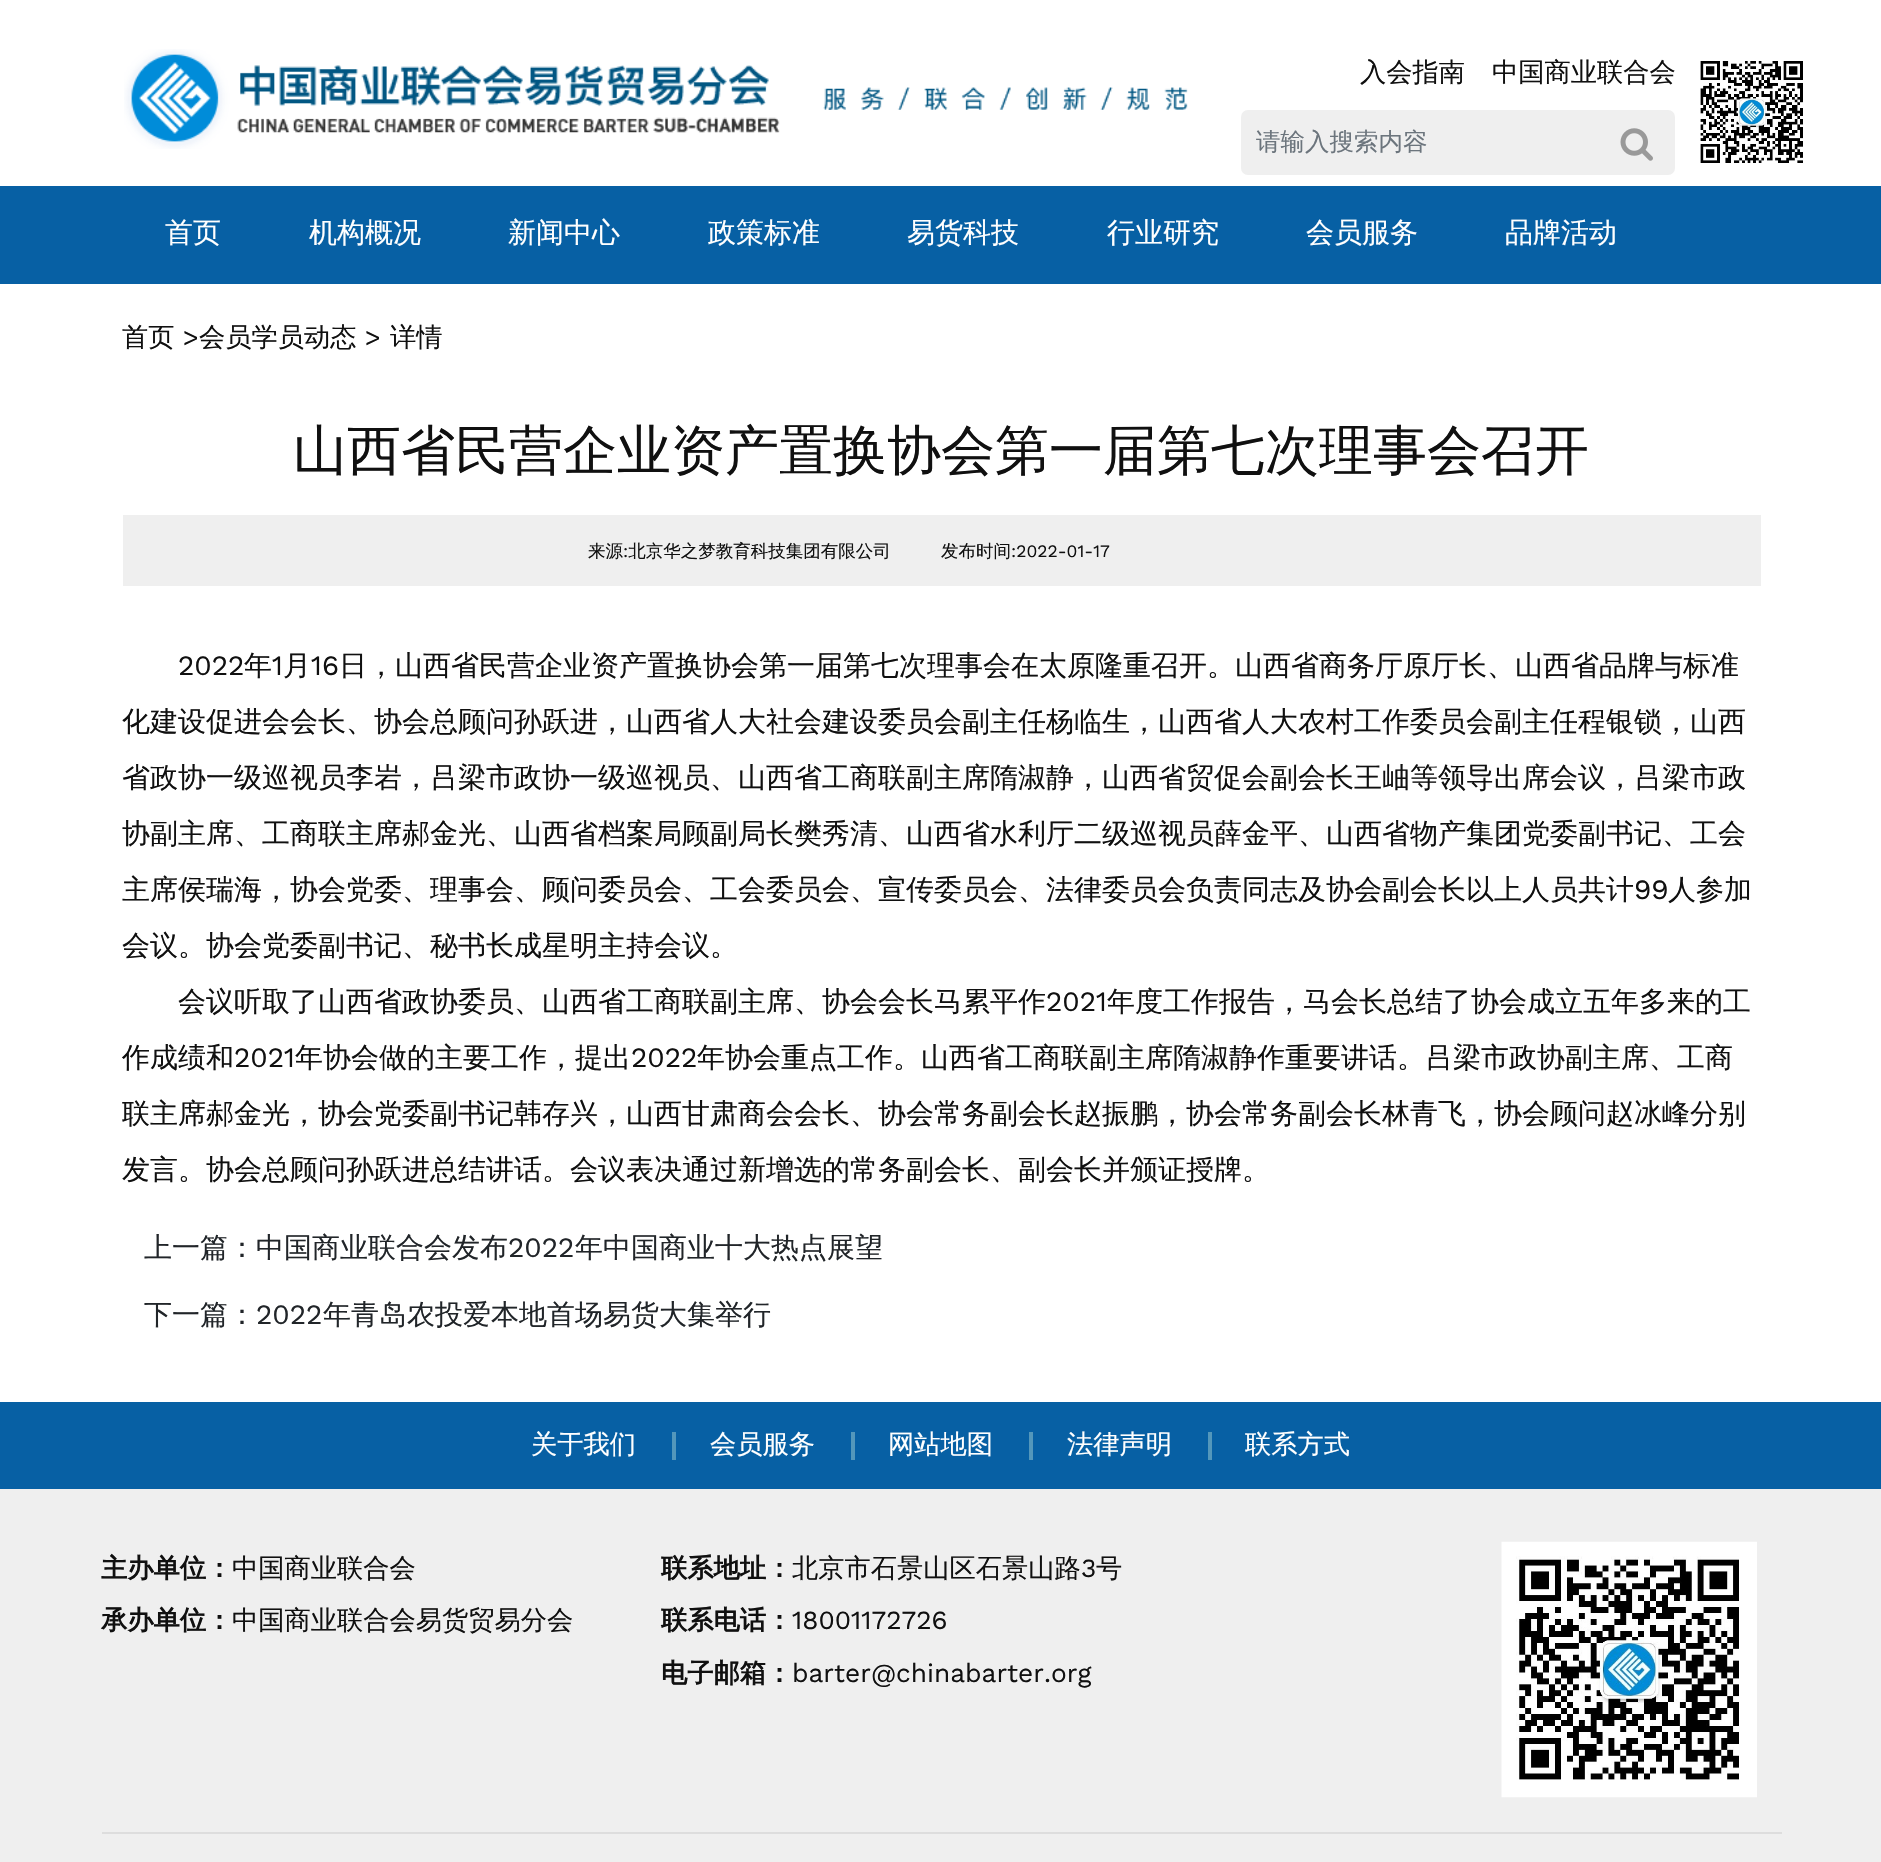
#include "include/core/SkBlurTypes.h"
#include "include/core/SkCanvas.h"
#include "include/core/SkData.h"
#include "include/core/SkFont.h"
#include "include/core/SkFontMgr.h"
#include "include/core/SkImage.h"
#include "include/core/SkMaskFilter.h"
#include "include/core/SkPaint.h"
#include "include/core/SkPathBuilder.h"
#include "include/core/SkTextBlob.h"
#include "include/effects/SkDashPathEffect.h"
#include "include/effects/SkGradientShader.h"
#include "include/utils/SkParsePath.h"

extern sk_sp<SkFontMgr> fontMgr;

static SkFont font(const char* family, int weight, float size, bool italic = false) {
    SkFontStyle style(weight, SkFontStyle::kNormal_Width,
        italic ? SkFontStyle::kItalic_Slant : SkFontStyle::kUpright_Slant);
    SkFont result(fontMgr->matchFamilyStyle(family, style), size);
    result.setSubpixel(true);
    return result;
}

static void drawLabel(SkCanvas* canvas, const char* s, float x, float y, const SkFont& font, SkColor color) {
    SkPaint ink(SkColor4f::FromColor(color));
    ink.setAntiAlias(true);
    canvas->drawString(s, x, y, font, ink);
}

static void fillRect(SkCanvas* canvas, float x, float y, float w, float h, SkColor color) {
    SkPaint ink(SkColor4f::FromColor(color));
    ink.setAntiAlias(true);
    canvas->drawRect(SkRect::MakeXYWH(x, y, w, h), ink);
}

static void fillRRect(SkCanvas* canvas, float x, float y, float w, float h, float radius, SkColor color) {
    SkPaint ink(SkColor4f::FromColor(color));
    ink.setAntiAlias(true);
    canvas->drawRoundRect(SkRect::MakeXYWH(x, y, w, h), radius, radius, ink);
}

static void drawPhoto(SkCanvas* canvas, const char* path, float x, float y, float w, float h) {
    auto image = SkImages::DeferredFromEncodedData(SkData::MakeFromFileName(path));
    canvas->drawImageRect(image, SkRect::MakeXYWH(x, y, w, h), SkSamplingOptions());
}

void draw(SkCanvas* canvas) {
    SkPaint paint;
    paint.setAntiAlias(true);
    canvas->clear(0xFFFFFFFF);
    drawPhoto(canvas, "assets/img1.png", 124, 49, 1064, 100);
    SkFont font1 = font("WenQuanYi Zen Hei", 500, 26.25f);
    drawLabel(canvas, "入会指南", 1360, 81, font1, 0xFF101010);
    drawLabel(canvas, "中国商业联合会", 1492, 81, font1, 0xFF101010);
    fillRRect(canvas, 1241, 110, 434, 65, 7, 0xFFEFEFEF);
    SkFont font2 = font("WenQuanYi Zen Hei", 500, 24.5f);
    drawLabel(canvas, "请输入搜索内容", 1256, 150, font2, 0xFF6C757D);
    drawPhoto(canvas, "assets/img2.png", 1620, 128, 33, 33);
    drawPhoto(canvas, "assets/img3.png", 1700, 61, 103, 102);
    fillRect(canvas, 0, 186, 1881, 98, 0xFF0760A4);
    SkFont font3 = font("WenQuanYi Zen Hei", 500, 28);
    drawLabel(canvas, "首页", 165, 242, font3, 0xFFFFFFFF);
    drawLabel(canvas, "机构概况", 309, 242, font3, 0xFFFFFFFF);
    drawLabel(canvas, "新闻中心", 508, 242, font3, 0xFFFFFFFF);
    drawLabel(canvas, "政策标准", 708, 242, font3, 0xFFFFFFFF);
    drawLabel(canvas, "易货科技", 907, 242, font3, 0xFFFFFFFF);
    drawLabel(canvas, "行业研究", 1107, 242, font3, 0xFFFFFFFF);
    drawLabel(canvas, "会员服务", 1306, 242, font3, 0xFFFFFFFF);
    drawLabel(canvas, "品牌活动", 1505, 242, font3, 0xFFFFFFFF);
    drawLabel(canvas, "首页", 122, 346, font1, 0xFF101010);
    SkFont font4 = font("Work Sans", 400, 26.25f);
    drawLabel(canvas, ">", 183, 346, font4, 0xFF101010);
    drawLabel(canvas, "会员学员动态", 199, 346, font1, 0xFF101010);
    drawLabel(canvas, ">", 365, 346, font4, 0xFF101010);
    drawLabel(canvas, "详情", 390, 346, font1, 0xFF101010);
    SkFont font5 = font("WenQuanYi Zen Hei", 500, 54);
    drawLabel(canvas, "山西省民营企业资产置换协会第一届第七次理事会召开", 293, 469, font5, 0xFF101010);
    fillRect(canvas, 123, 515, 1638, 71, 0xFFEFEFEF);
    SkFont font6 = font("WenQuanYi Zen Hei", 500, 17.5f);
    drawLabel(canvas, "来源 北京华之梦教育科技集团有限公司", 588, 557, font6, 0xFF101010);
    drawLabel(canvas, "发布时间", 941, 557, font6, 0xFF101010);
    SkFont font7 = font("Work Sans", 400, 17.5f);
    drawLabel(canvas, ":2022-01-17", 1011, 557, font7, 0xFF101010);
    drawLabel(canvas, ":", 623, 557, font7, 0xFF101010);
    SkFont font8 = font("Work Sans", 400, 28);
    drawLabel(canvas, "2022", 178, 675, font8, 0xFF101010);
    drawLabel(canvas, "年", 244, 675, font3, 0xFF101010);
    drawLabel(canvas, "1", 272, 675, font8, 0xFF101010);
    drawLabel(canvas, "月", 283, 675, font3, 0xFF101010);
    drawLabel(canvas, "16", 311, 675, font8, 0xFF101010);
    drawLabel(canvas, "日，山西省民营企业资产置换协会第一届第七次理事会在太原隆重召开。山西省商务厅原厅长、山西省品牌与标准", 339, 675, font3, 0xFF101010);
    drawLabel(canvas, "化建设促进会会长、协会总顾问孙跃进，山西省人大社会建设委员会副主任杨临生，山西省人大农村工作委员会副主任程银锁，山西", 122, 731, font3, 0xFF101010);
    drawLabel(canvas, "省政协一级巡视员李岩，吕梁市政协一级巡视员、山西省工商联副主席隋淑静，山西省贸促会副会长王岫等领导出席会议，吕梁市政", 122, 787, font3, 0xFF101010);
    drawLabel(canvas, "协副主席、工商联主席郝金光、山西省档案局顾副局长樊秀清、山西省水利厅二级巡视员薛金平、山西省物产集团党委副书记、工会", 122, 843, font3, 0xFF101010);
    drawLabel(canvas, "主席侯瑞海，协会党委、理事会、顾问委员会、工会委员会、宣传委员会、法律委员会负责同志及协会副会长以上人员共计", 122, 899, font3, 0xFF101010);
    drawLabel(canvas, "99", 1634, 899, font8, 0xFF101010);
    drawLabel(canvas, "人参加", 1668, 899, font3, 0xFF101010);
    drawLabel(canvas, "会议。协会党委副书记、秘书长成星明主持会议。", 122, 955, font3, 0xFF101010);
    drawLabel(canvas, "会议听取了山西省政协委员、山西省工商联副主席、协会会长马累平作", 178, 1011, font3, 0xFF101010);
    drawLabel(canvas, "2021", 1046, 1011, font8, 0xFF101010);
    drawLabel(canvas, "年度工作报告，马会长总结了协会成立五年多来的工", 1107, 1011, font3, 0xFF101010);
    drawLabel(canvas, "作成绩和", 122, 1067, font3, 0xFF101010);
    drawLabel(canvas, "2021", 234, 1067, font8, 0xFF101010);
    drawLabel(canvas, "年协会做的主要工作，提出", 295, 1067, font3, 0xFF101010);
    drawLabel(canvas, "2022", 631, 1067, font8, 0xFF101010);
    drawLabel(canvas, "年协会重点工作。山西省工商联副主席隋淑静作重要讲话。吕梁市政协副主席、工商", 697, 1067, font3, 0xFF101010);
    drawLabel(canvas, "联主席郝金光，协会党委副书记韩存兴，山西甘肃商会会长、协会常务副会长赵振鹏，协会常务副会长林青飞，协会顾问赵冰峰分别", 122, 1123, font3, 0xFF101010);
    drawLabel(canvas, "发言。协会总顾问孙跃进总结讲话。会议表决通过新增选的常务副会长、副会长并颁证授牌。", 122, 1179, font3, 0xFF101010);
    drawLabel(canvas, "上一篇：中国商业联合会发布", 144, 1257, font3, 0xFF212529);
    drawLabel(canvas, "2022", 508, 1257, font8, 0xFF212529);
    drawLabel(canvas, "年中国商业十大热点展望", 575, 1257, font3, 0xFF212529);
    drawLabel(canvas, "下一篇：", 144, 1324, font3, 0xFF212529);
    drawLabel(canvas, "2022", 256, 1324, font8, 0xFF212529);
    drawLabel(canvas, "年青岛农投爱本地首场易货大集举行", 323, 1324, font3, 0xFF212529);
    fillRect(canvas, 0, 1402, 1881, 87, 0xFF0760A4);
    drawLabel(canvas, "关于我们", 531, 1453, font1, 0xFFFFFFFF);
    fillRect(canvas, 672, 1432, 4, 28, 0xFF5397BB);
    drawLabel(canvas, "会员服务", 710, 1453, font1, 0xFFFFFFFF);
    fillRect(canvas, 851, 1432, 4, 28, 0xFF5397BB);
    drawLabel(canvas, "网站地图", 888, 1453, font1, 0xFFFFFFFF);
    fillRect(canvas, 1029, 1432, 4, 28, 0xFF5397BB);
    drawLabel(canvas, "法律声明", 1067, 1453, font1, 0xFFFFFFFF);
    fillRect(canvas, 1208, 1432, 4, 28, 0xFF5397BB);
    drawLabel(canvas, "联系方式", 1245, 1453, font1, 0xFFFFFFFF);
    fillRect(canvas, 0, 1489, 1881, 373, 0xFFEFEFEF);
    fillRect(canvas, 102, 1832, 1680, 2, 0xFFDDDDDD);
    SkFont font9 = font("WenQuanYi Zen Hei", 700, 26.25f);
    drawLabel(canvas, "主办单位：", 101, 1577, font9, 0xFF101010);
    drawLabel(canvas, "中国商业联合会", 232, 1577, font1, 0xFF101010);
    drawLabel(canvas, "承办单位：", 101, 1629, font9, 0xFF101010);
    drawLabel(canvas, "中国商业联合会易货贸易分会", 232, 1629, font1, 0xFF101010);
    drawLabel(canvas, "联系地址：", 661, 1577, font9, 0xFF101010);
    drawLabel(canvas, "北京市石景山区石景山路", 792, 1577, font1, 0xFF101010);
    drawLabel(canvas, "3", 1081, 1577, font4, 0xFF101010);
    drawLabel(canvas, "号", 1096, 1577, font1, 0xFF101010);
    drawLabel(canvas, "联系电话：", 661, 1629, font9, 0xFF101010);
    drawLabel(canvas, "18001172726", 792, 1629, font4, 0xFF101010);
    drawLabel(canvas, "电子邮箱：", 661, 1682, font9, 0xFF101010);
    drawLabel(canvas, "barter@chinabarter.org", 792, 1682, font4, 0xFF101010);
    drawPhoto(canvas, "assets/img4.png", 1501, 1541, 256, 257);
}
